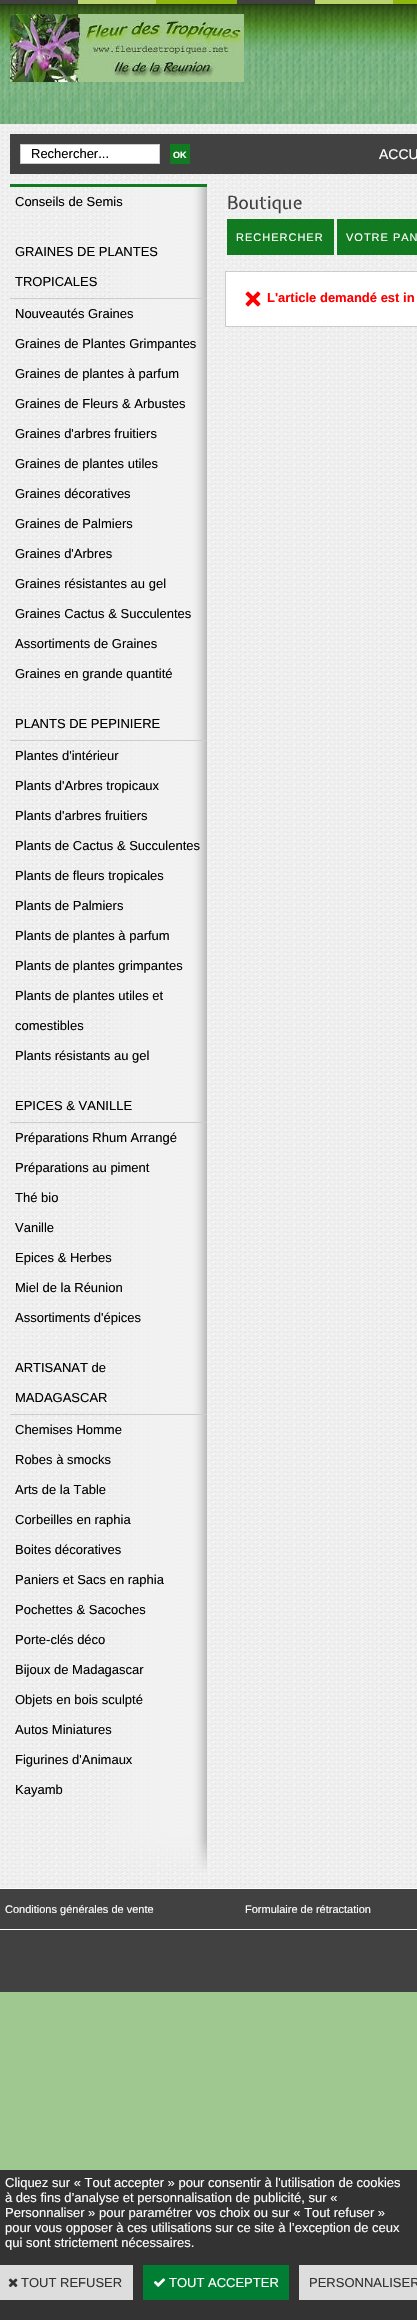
#include "include/core/SkBlurTypes.h"
#include "include/core/SkCanvas.h"
#include "include/core/SkData.h"
#include "include/core/SkFont.h"
#include "include/core/SkFontMgr.h"
#include "include/core/SkImage.h"
#include "include/core/SkMaskFilter.h"
#include "include/core/SkPaint.h"
#include "include/core/SkPathBuilder.h"
#include "include/core/SkTextBlob.h"
#include "include/effects/SkDashPathEffect.h"
#include "include/effects/SkGradientShader.h"
#include "include/utils/SkParsePath.h"

extern sk_sp<SkFontMgr> fontMgr;

static SkFont font(const char* family, int weight, float size, bool italic = false) {
    SkFontStyle style(weight, SkFontStyle::kNormal_Width,
        italic ? SkFontStyle::kItalic_Slant : SkFontStyle::kUpright_Slant);
    SkFont result(fontMgr->matchFamilyStyle(family, style), size);
    result.setSubpixel(true);
    return result;
}

static void drawLabel(SkCanvas* canvas, const char* s, float x, float y, const SkFont& font, SkColor color) {
    SkPaint ink(SkColor4f::FromColor(color));
    ink.setAntiAlias(true);
    canvas->drawString(s, x, y, font, ink);
}

static void drawTracked(SkCanvas* canvas, const char* s, float x, float y, const SkFont& font, const SkPaint& ink, float letter, float word) {
    std::vector<SkGlyphID> glyphs(font.countText(s, strlen(s), SkTextEncoding::kUTF8));
    std::vector<float> xs(glyphs.size());
    font.textToGlyphs(s, strlen(s), SkTextEncoding::kUTF8, glyphs);
    font.getXPos(glyphs, xs, x);
    float extra = 0;
    for (size_t i = 0; i < glyphs.size(); i++) {
        xs[i] += extra;
        extra += letter + word * (glyphs[i] == font.unicharToGlyph(' '));
    }
    canvas->drawTextBlob(SkTextBlob::MakeFromPosHGlyphs(glyphs, xs, y, font), 0, 0, ink);
}

static void fillRect(SkCanvas* canvas, float x, float y, float w, float h, SkColor color) {
    SkPaint ink(SkColor4f::FromColor(color));
    ink.setAntiAlias(true);
    canvas->drawRect(SkRect::MakeXYWH(x, y, w, h), ink);
}

static void drawPhoto(SkCanvas* canvas, const char* path, float x, float y, float w, float h) {
    auto image = SkImages::DeferredFromEncodedData(SkData::MakeFromFileName(path));
    canvas->drawImageRect(image, SkRect::MakeXYWH(x, y, w, h), SkSamplingOptions());
}

void draw(SkCanvas* canvas) {
    SkPaint paint;
    paint.setAntiAlias(true);
    canvas->clear(0xFF9EC890);
    fillRect(canvas, 78, 0, 339, 4, 0xFF8EB80D);
    drawPhoto(canvas, "assets/img1.png", 0, 0, 393, 4);
    drawPhoto(canvas, "assets/img2.png", 0, 4, 417, 120);
    drawPhoto(canvas, "assets/img3.png", 10, 14, 234, 68);
    drawPhoto(canvas, "assets/img4.png", 0, 124, 417, 1764);
    fillRect(canvas, 10, 134, 407, 40, 0xFF414141);
    paint.setColor(0xFFFFFFFF);
    canvas->drawRect(SkRect::MakeXYWH(20.5f, 144.5f, 139, 19), paint);
    paint.setStroke(true);
    paint.setStrokeWidth(1);
    paint.setColor(0xFFCCCCCC);
    canvas->drawRect(SkRect::MakeXYWH(20.5f, 144.5f, 139, 19), paint);
    SkFont font1 = font("Liberation Sans", 400, 13);
    drawLabel(canvas, "Rechercher...", 31, 158, font1, 0xFF000000);
    fillRect(canvas, 170, 144, 20, 20, 0xFF127A20);
    SkFont font2 = font("Liberation Sans", 700, 9);
    drawLabel(canvas, "OK", 173, 158, font2, 0xFFFFFFFF);
    SkFont font3 = font("Liberation Sans", 400, 14);
    drawLabel(canvas, "ACCU", 379, 159, font3, 0xFFFFFFFF);
    fillRect(canvas, 10, 184, 197, 3, 0xFF127A20);
    drawPhoto(canvas, "assets/img5.png", 113, 187, 94, 30);
    drawLabel(canvas, "Conseils de Semis", 15, 206, font1, 0xFF000000);
    drawPhoto(canvas, "assets/img6.png", 113, 217, 94, 20);
    drawPhoto(canvas, "assets/img7.png", 113, 237, 94, 60);
    drawLabel(canvas, "GRAINES DE PLANTES", 15, 256, font1, 0xFF000000);
    drawLabel(canvas, "TROPICALES", 15, 286, font1, 0xFF000000);
    drawPhoto(canvas, "assets/img8.png", 137, 297, 70, 1);
    fillRect(canvas, 10, 298, 197, 1, 0xFFCCCCCC);
    drawPhoto(canvas, "assets/img5.png", 113, 299, 94, 30);
    drawLabel(canvas, "Nouveautés Graines", 15, 318, font1, 0xFF000000);
    drawPhoto(canvas, "assets/img9.png", 113, 329, 94, 30);
    drawLabel(canvas, "Graines de Plantes Grimpantes", 15, 348, font1, 0xFF000000);
    drawPhoto(canvas, "assets/img10.png", 113, 359, 94, 30);
    drawLabel(canvas, "Graines de plantes à parfum", 15, 378, font1, 0xFF000000);
    drawPhoto(canvas, "assets/img11.png", 113, 389, 94, 30);
    drawLabel(canvas, "Graines de Fleurs & Arbustes", 15, 408, font1, 0xFF000000);
    drawPhoto(canvas, "assets/img5.png", 113, 419, 94, 30);
    drawLabel(canvas, "Graines d'arbres fruitiers", 15, 438, font1, 0xFF000000);
    drawPhoto(canvas, "assets/img9.png", 113, 449, 94, 30);
    drawLabel(canvas, "Graines de plantes utiles", 15, 468, font1, 0xFF000000);
    drawPhoto(canvas, "assets/img10.png", 113, 479, 94, 30);
    drawLabel(canvas, "Graines décoratives", 15, 498, font1, 0xFF000000);
    drawPhoto(canvas, "assets/img11.png", 113, 509, 94, 30);
    drawLabel(canvas, "Graines de Palmiers", 15, 528, font1, 0xFF000000);
    drawPhoto(canvas, "assets/img5.png", 113, 539, 94, 30);
    drawLabel(canvas, "Graines d'Arbres", 15, 558, font1, 0xFF000000);
    drawPhoto(canvas, "assets/img9.png", 113, 569, 94, 30);
    drawLabel(canvas, "Graines résistantes au gel", 15, 588, font1, 0xFF000000);
    drawPhoto(canvas, "assets/img10.png", 113, 599, 94, 30);
    drawLabel(canvas, "Graines Cactus & Succulentes", 15, 618, font1, 0xFF000000);
    drawPhoto(canvas, "assets/img11.png", 113, 629, 94, 30);
    drawLabel(canvas, "Assortiments de Graines", 15, 648, font1, 0xFF000000);
    drawPhoto(canvas, "assets/img5.png", 113, 659, 94, 30);
    drawLabel(canvas, "Graines en grande quantité", 15, 678, font1, 0xFF000000);
    drawPhoto(canvas, "assets/img6.png", 113, 689, 94, 20);
    drawPhoto(canvas, "assets/img11.png", 113, 709, 94, 30);
    drawLabel(canvas, "PLANTS DE PEPINIERE", 15, 728, font1, 0xFF000000);
    drawPhoto(canvas, "assets/img12.png", 113, 739, 94, 1);
    fillRect(canvas, 10, 740, 197, 1, 0xFFCCCCCC);
    drawPhoto(canvas, "assets/img11.png", 113, 741, 94, 30);
    drawLabel(canvas, "Plantes d'intérieur", 15, 760, font1, 0xFF000000);
    drawPhoto(canvas, "assets/img5.png", 113, 771, 94, 30);
    drawLabel(canvas, "Plants d'Arbres tropicaux", 15, 790, font1, 0xFF000000);
    drawPhoto(canvas, "assets/img9.png", 113, 801, 94, 30);
    drawLabel(canvas, "Plants d'arbres fruitiers", 15, 820, font1, 0xFF000000);
    drawPhoto(canvas, "assets/img10.png", 113, 831, 94, 30);
    drawLabel(canvas, "Plants de Cactus & Succulentes", 15, 850, font1, 0xFF000000);
    drawPhoto(canvas, "assets/img11.png", 113, 861, 94, 30);
    drawLabel(canvas, "Plants de fleurs tropicales", 15, 880, font1, 0xFF000000);
    drawPhoto(canvas, "assets/img5.png", 113, 891, 94, 30);
    drawLabel(canvas, "Plants de Palmiers", 15, 910, font1, 0xFF000000);
    drawPhoto(canvas, "assets/img9.png", 113, 921, 94, 30);
    drawLabel(canvas, "Plants de plantes à parfum", 15, 940, font1, 0xFF000000);
    drawPhoto(canvas, "assets/img10.png", 113, 951, 94, 30);
    drawLabel(canvas, "Plants de plantes grimpantes", 15, 970, font1, 0xFF000000);
    drawPhoto(canvas, "assets/img7.png", 113, 981, 94, 60);
    drawLabel(canvas, "Plants de plantes utiles et", 15, 1000, font1, 0xFF000000);
    drawLabel(canvas, "comestibles", 15, 1030, font1, 0xFF000000);
    drawPhoto(canvas, "assets/img9.png", 113, 1041, 94, 30);
    drawLabel(canvas, "Plants résistants au gel", 15, 1060, font1, 0xFF000000);
    drawPhoto(canvas, "assets/img13.png", 113, 1071, 94, 20);
    drawPhoto(canvas, "assets/img5.png", 113, 1091, 94, 30);
    drawLabel(canvas, "EPICES & VANILLE", 15, 1110, font1, 0xFF000000);
    drawPhoto(canvas, "assets/img8.png", 137, 1121, 70, 1);
    fillRect(canvas, 10, 1122, 197, 1, 0xFFCCCCCC);
    drawPhoto(canvas, "assets/img5.png", 113, 1123, 94, 30);
    drawLabel(canvas, "Préparations Rhum Arrangé", 15, 1142, font1, 0xFF000000);
    drawPhoto(canvas, "assets/img9.png", 113, 1153, 94, 30);
    drawLabel(canvas, "Préparations au piment", 15, 1172, font1, 0xFF000000);
    drawPhoto(canvas, "assets/img10.png", 113, 1183, 94, 30);
    drawLabel(canvas, "Thé bio", 15, 1202, font1, 0xFF000000);
    drawPhoto(canvas, "assets/img11.png", 113, 1213, 94, 30);
    drawLabel(canvas, "Vanille", 15, 1232, font1, 0xFF000000);
    drawPhoto(canvas, "assets/img5.png", 113, 1243, 94, 30);
    drawLabel(canvas, "Epices & Herbes", 15, 1262, font1, 0xFF000000);
    drawPhoto(canvas, "assets/img9.png", 113, 1273, 94, 30);
    drawLabel(canvas, "Miel de la Réunion", 15, 1292, font1, 0xFF000000);
    drawPhoto(canvas, "assets/img10.png", 113, 1303, 94, 30);
    drawLabel(canvas, "Assortiments d'épices", 15, 1322, font1, 0xFF000000);
    drawPhoto(canvas, "assets/img14.png", 113, 1333, 94, 20);
    drawPhoto(canvas, "assets/img15.png", 113, 1353, 94, 60);
    drawLabel(canvas, "ARTISANAT de", 15, 1372, font1, 0xFF000000);
    drawLabel(canvas, "MADAGASCAR", 15, 1402, font1, 0xFF000000);
    drawPhoto(canvas, "assets/img16.png", 124, 1413, 83, 1);
    fillRect(canvas, 10, 1414, 197, 1, 0xFFCCCCCC);
    drawPhoto(canvas, "assets/img10.png", 113, 1415, 94, 30);
    drawLabel(canvas, "Chemises Homme", 15, 1434, font1, 0xFF000000);
    drawPhoto(canvas, "assets/img11.png", 113, 1445, 94, 30);
    drawLabel(canvas, "Robes à smocks", 15, 1464, font1, 0xFF000000);
    drawPhoto(canvas, "assets/img5.png", 113, 1475, 94, 30);
    drawLabel(canvas, "Arts de la Table", 15, 1494, font1, 0xFF000000);
    drawPhoto(canvas, "assets/img9.png", 113, 1505, 94, 30);
    drawLabel(canvas, "Corbeilles en raphia", 15, 1524, font1, 0xFF000000);
    drawPhoto(canvas, "assets/img10.png", 113, 1535, 94, 30);
    drawLabel(canvas, "Boites décoratives", 15, 1554, font1, 0xFF000000);
    drawPhoto(canvas, "assets/img11.png", 113, 1565, 94, 30);
    drawLabel(canvas, "Paniers et Sacs en raphia", 15, 1584, font1, 0xFF000000);
    drawPhoto(canvas, "assets/img5.png", 113, 1595, 94, 30);
    drawLabel(canvas, "Pochettes & Sacoches", 15, 1614, font1, 0xFF000000);
    drawPhoto(canvas, "assets/img9.png", 113, 1625, 94, 30);
    drawLabel(canvas, "Porte-clés déco", 15, 1644, font1, 0xFF000000);
    drawPhoto(canvas, "assets/img10.png", 113, 1655, 94, 30);
    drawLabel(canvas, "Bijoux de Madagascar", 15, 1674, font1, 0xFF000000);
    drawPhoto(canvas, "assets/img11.png", 113, 1685, 94, 30);
    drawLabel(canvas, "Objets en bois sculpté", 15, 1704, font1, 0xFF000000);
    drawPhoto(canvas, "assets/img5.png", 113, 1715, 94, 30);
    drawLabel(canvas, "Autos Miniatures", 15, 1734, font1, 0xFF000000);
    drawPhoto(canvas, "assets/img9.png", 113, 1745, 94, 30);
    drawLabel(canvas, "Figurines d'Animaux", 15, 1764, font1, 0xFF000000);
    drawPhoto(canvas, "assets/img10.png", 113, 1775, 94, 30);
    drawLabel(canvas, "Kayamb", 15, 1794, font1, 0xFF000000);
    drawPhoto(canvas, "assets/img14.png", 113, 1805, 94, 20);
    drawPhoto(canvas, "assets/img17.png", 107, 1825, 100, 47);
    SkFont font4 = font("Expletus Sans", 400, 18);
    drawLabel(canvas, "Boutique", 227, 209, font4, 0xFF414141);
    fillRect(canvas, 227, 219, 107, 36, 0xFF127A20);
    SkFont font5 = font("Liberation Sans", 400, 11);
    paint.setStroke(false);
    paint.setColor(0xFFFFFFFF);
    drawTracked(canvas, "RECHERCHER", 236, 241, font5, paint, 1, 0);
    fillRect(canvas, 337, 219, 80, 36, 0xFF127A20);
    drawTracked(canvas, "VOTRE PAN", 346, 241, font5, paint, 1, 0);
    canvas->drawRect(SkRect::MakeXYWH(225.5f, 271.5f, 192, 55), paint);
    paint.setStroke(true);
    paint.setColor(0xFFCCCCCC);
    canvas->drawRect(SkRect::MakeXYWH(225.5f, 271.5f, 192, 55), paint);
    drawPhoto(canvas, "assets/img18.png", 245, 291, 16, 16);
    SkFont font6 = font("Liberation Sans", 700, 13);
    drawLabel(canvas, "L'article demandé est in", 267, 302, font6, 0xFFFF0000);
    fillRect(canvas, 0, 1889, 417, 103, 0xFF414141);
    fillRect(canvas, 0, 1888, 417, 1, 0xFFFFFFFF);
    fillRect(canvas, 0, 1929, 417, 1, 0xFFFFFFFF);
    drawLabel(canvas, "Conditions générales de vente", 5, 1913, font5, 0xFFFFFFFF);
    drawLabel(canvas, "Formulaire de rétractation", 245, 1913, font5, 0xFFFFFFFF);
    fillRect(canvas, 0, 2170, 417, 150, 0xFF333333);
    drawLabel(canvas, "Cliquez sur « Tout accepter » pour consentir à l'utilisation de cookies", 5, 2187, font1, 0xFFFFFFFF);
    drawLabel(canvas, "à des fins d’analyse et personnalisation de publicité, sur «", 5, 2202, font1, 0xFFFFFFFF);
    drawLabel(canvas, "Personnaliser » pour paramétrer vos choix ou sur « Tout refuser »", 5, 2217, font1, 0xFFFFFFFF);
    drawLabel(canvas, "pour vous opposer à ces utilisations sur ce site à l’exception de ceux", 5, 2232, font1, 0xFFFFFFFF);
    drawLabel(canvas, "qui sont strictement nécessaires.", 5, 2247, font1, 0xFFFFFFFF);
    fillRect(canvas, 0, 2265, 133, 35, 0xFFDDDDDD);
    drawPhoto(canvas, "assets/img19.png", 8, 2278, 10, 10);
    drawLabel(canvas, "TOUT REFUSER", 21, 2287, font1, 0xFF333333);
    fillRect(canvas, 143, 2265, 146, 35, 0xFF007E33);
    drawPhoto(canvas, "assets/img20.png", 153, 2278, 13, 9);
    drawLabel(canvas, "TOUT ACCEPTER", 169, 2287, font1, 0xFFFFFFFF);
    fillRect(canvas, 299, 2265, 118, 35, 0xFFDDDDDD);
    drawLabel(canvas, "PERSONNALISER", 309, 2287, font1, 0xFF333333);
}
